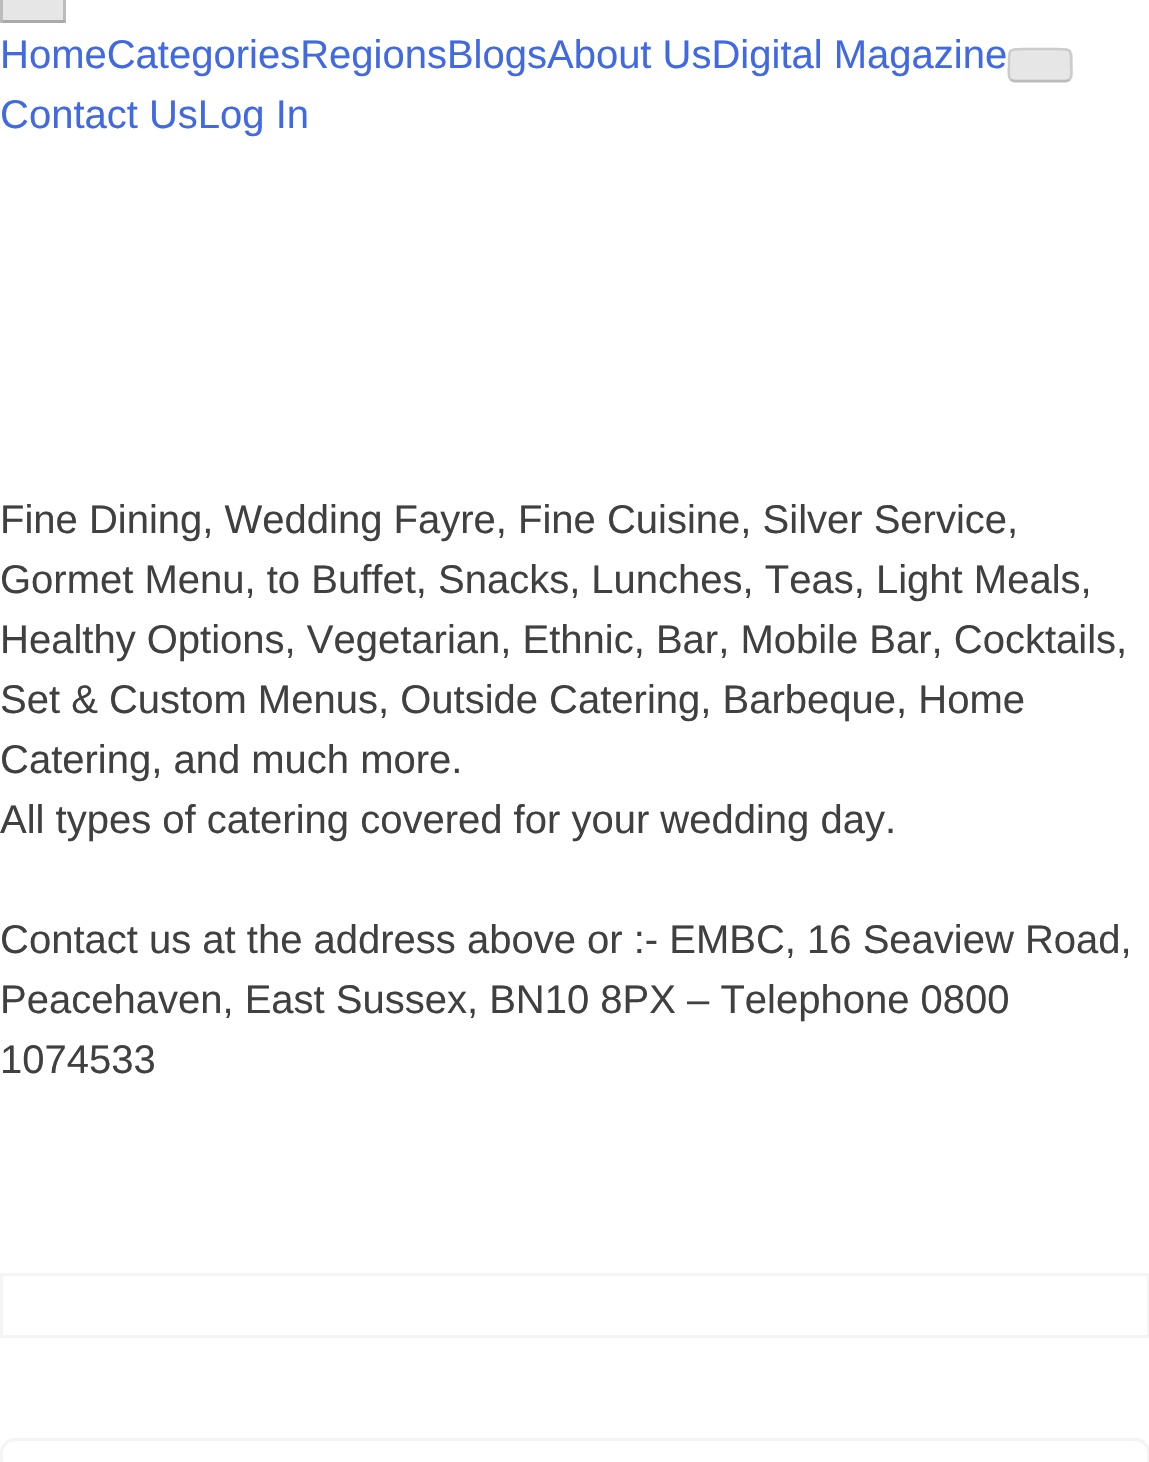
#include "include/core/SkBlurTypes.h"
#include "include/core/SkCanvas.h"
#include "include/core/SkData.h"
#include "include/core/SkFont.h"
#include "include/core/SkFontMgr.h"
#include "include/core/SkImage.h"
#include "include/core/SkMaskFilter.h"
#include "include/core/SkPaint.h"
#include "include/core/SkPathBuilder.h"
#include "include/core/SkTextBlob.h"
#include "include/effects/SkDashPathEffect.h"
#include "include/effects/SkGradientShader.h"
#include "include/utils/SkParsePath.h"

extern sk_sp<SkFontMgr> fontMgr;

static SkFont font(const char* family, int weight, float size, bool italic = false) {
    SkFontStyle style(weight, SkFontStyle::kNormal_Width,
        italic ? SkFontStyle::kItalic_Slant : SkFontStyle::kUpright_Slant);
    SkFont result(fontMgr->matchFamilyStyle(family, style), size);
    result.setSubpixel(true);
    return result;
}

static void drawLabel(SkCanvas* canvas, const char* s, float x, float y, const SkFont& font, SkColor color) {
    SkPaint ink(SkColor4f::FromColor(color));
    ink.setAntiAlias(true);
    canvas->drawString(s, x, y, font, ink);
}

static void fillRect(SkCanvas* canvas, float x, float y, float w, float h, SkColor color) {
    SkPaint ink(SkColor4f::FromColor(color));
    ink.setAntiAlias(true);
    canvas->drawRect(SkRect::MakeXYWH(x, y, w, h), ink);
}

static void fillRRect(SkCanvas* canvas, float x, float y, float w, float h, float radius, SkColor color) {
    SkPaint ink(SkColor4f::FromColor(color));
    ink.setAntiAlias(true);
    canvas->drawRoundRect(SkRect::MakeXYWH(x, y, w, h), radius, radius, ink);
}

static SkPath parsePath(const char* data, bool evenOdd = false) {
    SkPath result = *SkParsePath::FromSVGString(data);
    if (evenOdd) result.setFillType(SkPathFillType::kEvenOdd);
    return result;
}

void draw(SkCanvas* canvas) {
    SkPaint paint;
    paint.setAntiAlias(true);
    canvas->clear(0xFFFFFFFF);
    fillRect(canvas, 3, 0, 60, 20, 0xFFE6E6E6);
    fillRect(canvas, 63, 0, 3, 23, 0xFFBBBBBB);
    fillRect(canvas, 0, 20, 65, 3, 0xFFAAAAAA);
    fillRect(canvas, 0, 0, 3, 23, 0xFFBBBBBB);
    SkFont font1 = font("Liberation Sans", 400, 40);
    drawLabel(canvas, "HomeCategoriesRegionsBlogsAbout UsDigital Magazine", 0, 68, font1, 0xFF4169E1);
    drawLabel(canvas, "Contact UsLog In", 0, 128, font1, 0xFF4169E1);
    fillRRect(canvas, 1008, 48, 65, 35, 8, 0xFFE6E6E6);
    paint.setStroke(true);
    paint.setStrokeWidth(2.5f);
    paint.setColor(0xFFBBBBBB);
    canvas->drawPath(parsePath("M1069.5 79.5C1068 80.5 1066.5 81 1065 81H1015C1013.5 81 1012 80.5 1010.5 79.5"), paint);
    paint.setColor(0xFFCCCCCC);
    canvas->drawPath(parsePath("M1010.5 79.5C1007.5 76 1009 69 1009 65C1009 49.5 1007.5 49 1023.5 49H1056.5C1072.5 49 1071 49.5 1071 65C1071 69 1072.5 76 1069.5 79.5"), paint);
    drawLabel(canvas, "Fine Dining, Wedding Fayre, Fine Cuisine, Silver Service,", 0, 533, font1, 0xFF404040);
    drawLabel(canvas, "Gormet Menu, to Buffet, Snacks, Lunches, Teas, Light Meals,", 0, 593, font1, 0xFF404040);
    drawLabel(canvas, "Healthy Options, Vegetarian, Ethnic, Bar, Mobile Bar, Cocktails,", 0, 653, font1, 0xFF404040);
    drawLabel(canvas, "Set & Custom Menus, Outside Catering, Barbeque, Home", 0, 713, font1, 0xFF404040);
    drawLabel(canvas, "Catering, and much more.", 0, 773, font1, 0xFF404040);
    drawLabel(canvas, "All types of catering covered for your wedding day.", 0, 833, font1, 0xFF404040);
    drawLabel(canvas, "Contact us at the address above or :- EMBC, 16 Seaview Road,", 0, 953, font1, 0xFF404040);
    drawLabel(canvas, "Peacehaven, East Sussex, BN10 8PX – Telephone 0800", 0, 1013, font1, 0xFF404040);
    drawLabel(canvas, "1074533", 0, 1073, font1, 0xFF404040);
    paint.setStrokeWidth(3);
    paint.setColor(0x0A000000);
    canvas->drawRect(SkRect::MakeXYWH(1.5f, 1274.5f, 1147, 62), paint);
    paint.setColor(0xFFF4F4F4);
    canvas->drawRoundRect(SkRect::MakeXYWH(1.5f, 1439.5f, 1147, 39), 13.5f, 13.5f, paint);
}
